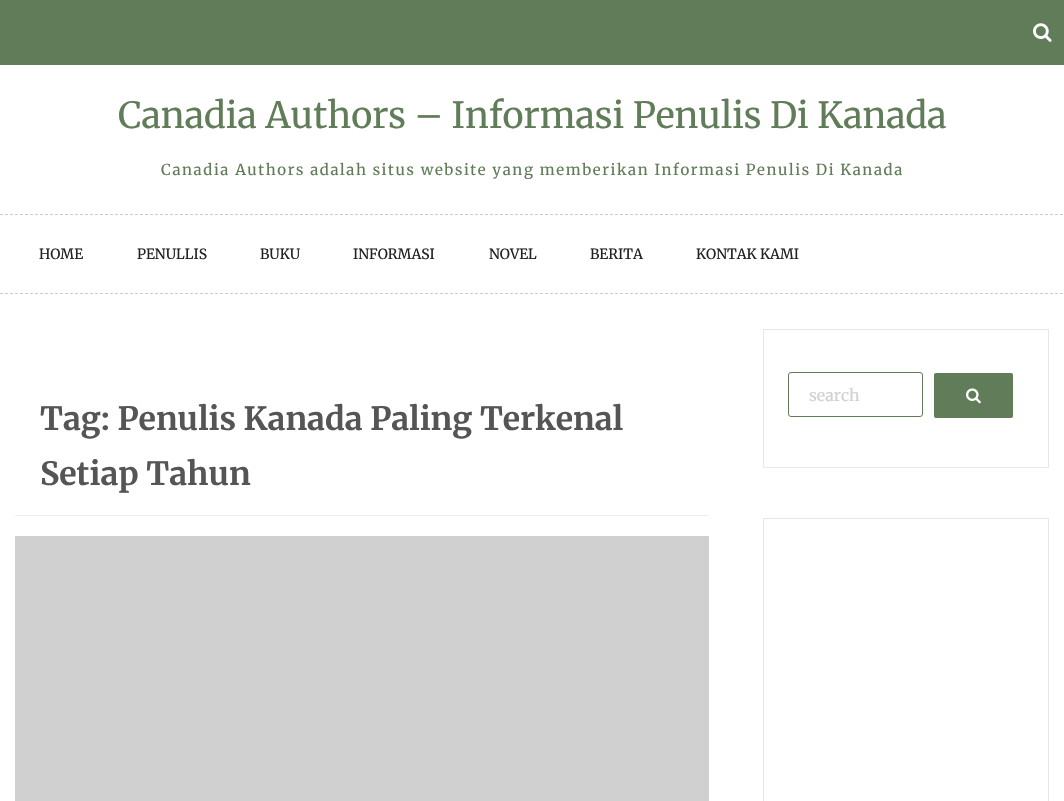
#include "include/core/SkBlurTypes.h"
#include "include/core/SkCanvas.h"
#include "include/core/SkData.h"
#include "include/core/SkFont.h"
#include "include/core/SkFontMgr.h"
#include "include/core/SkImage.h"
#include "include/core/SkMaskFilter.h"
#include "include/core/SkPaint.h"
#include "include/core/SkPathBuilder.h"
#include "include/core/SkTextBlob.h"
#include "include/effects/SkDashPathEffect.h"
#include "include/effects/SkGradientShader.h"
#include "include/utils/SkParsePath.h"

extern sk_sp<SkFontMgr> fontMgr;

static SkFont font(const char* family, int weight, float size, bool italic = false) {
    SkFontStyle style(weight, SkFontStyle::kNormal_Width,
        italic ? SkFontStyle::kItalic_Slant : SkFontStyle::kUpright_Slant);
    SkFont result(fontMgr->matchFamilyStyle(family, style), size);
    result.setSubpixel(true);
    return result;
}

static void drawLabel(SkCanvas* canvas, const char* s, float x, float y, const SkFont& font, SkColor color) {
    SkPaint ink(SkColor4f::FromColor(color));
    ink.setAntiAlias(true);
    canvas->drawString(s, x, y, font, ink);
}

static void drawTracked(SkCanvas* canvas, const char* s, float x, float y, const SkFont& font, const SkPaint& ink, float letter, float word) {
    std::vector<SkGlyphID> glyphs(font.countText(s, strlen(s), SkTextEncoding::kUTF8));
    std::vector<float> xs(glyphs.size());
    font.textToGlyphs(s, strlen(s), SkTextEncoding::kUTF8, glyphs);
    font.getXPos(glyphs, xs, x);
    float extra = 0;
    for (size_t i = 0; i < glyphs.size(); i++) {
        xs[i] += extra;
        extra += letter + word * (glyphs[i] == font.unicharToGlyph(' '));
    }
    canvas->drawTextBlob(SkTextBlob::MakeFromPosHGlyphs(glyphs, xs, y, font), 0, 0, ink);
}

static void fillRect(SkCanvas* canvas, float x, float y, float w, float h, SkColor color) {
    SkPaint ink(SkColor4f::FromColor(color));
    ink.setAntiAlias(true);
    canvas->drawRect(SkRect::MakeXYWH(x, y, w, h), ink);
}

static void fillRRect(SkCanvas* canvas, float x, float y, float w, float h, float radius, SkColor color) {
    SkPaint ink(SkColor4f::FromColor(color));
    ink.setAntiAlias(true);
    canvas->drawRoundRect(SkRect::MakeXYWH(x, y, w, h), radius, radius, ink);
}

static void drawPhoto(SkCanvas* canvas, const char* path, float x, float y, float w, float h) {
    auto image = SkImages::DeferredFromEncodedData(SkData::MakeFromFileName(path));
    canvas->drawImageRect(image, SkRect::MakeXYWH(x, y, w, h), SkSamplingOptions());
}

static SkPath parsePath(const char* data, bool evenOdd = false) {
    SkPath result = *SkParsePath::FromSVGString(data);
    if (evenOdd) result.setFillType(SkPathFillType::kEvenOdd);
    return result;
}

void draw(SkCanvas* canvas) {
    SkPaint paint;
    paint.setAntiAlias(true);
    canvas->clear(0xFFFFFFFF);
    fillRect(canvas, 0, 0, 1064, 65, 0xFF617C58);
    drawPhoto(canvas, "assets/img1.png", 1033, 23, 19, 19);
    SkFont font1 = font("Merriweather", 400, 36);
    drawLabel(canvas, "Canadia Authors – Informasi Penulis Di Kanada", 118, 128, font1, 0xFF617C58);
    SkFont font2 = font("Merriweather", 400, 15);
    paint.setColor(0xFF617C58);
    drawTracked(canvas, "Canadia Authors adalah situs website yang memberikan Informasi Penulis Di Kanada", 161, 175, font2, paint, 1.6f, 0);
    paint.setStroke(true);
    paint.setStrokeWidth(1);
    paint.setColor(0xFFCCCCCC);
    paint.setPathEffect(SkDashPathEffect::Make({{3, 2}}, 0));
    canvas->drawPath(parsePath("M0 214.5H1064"), paint);
    paint.setPathEffect(nullptr);
    paint.setPathEffect(SkDashPathEffect::Make({{3, 2}}, 0));
    canvas->drawPath(parsePath("M0 293.5H1064"), paint);
    paint.setPathEffect(nullptr);
    SkFont font3 = font("Merriweather", 400, 14);
    drawLabel(canvas, "HOME", 39, 259, font3, 0xFF222222);
    drawLabel(canvas, "PENULLIS", 137, 259, font3, 0xFF222222);
    drawLabel(canvas, "BUKU", 260, 259, font3, 0xFF222222);
    drawLabel(canvas, "INFORMASI", 353, 259, font3, 0xFF222222);
    drawLabel(canvas, "NOVEL", 489, 259, font3, 0xFF222222);
    drawLabel(canvas, "BERITA", 590, 259, font3, 0xFF222222);
    drawLabel(canvas, "KONTAK KAMI", 696, 259, font3, 0xFF222222);
    paint.setColor(0xFFE7E7E7);
    canvas->drawRect(SkRect::MakeXYWH(763.5f, 329.5f, 285, 138), paint);
    paint.setColor(0xFF617C58);
    canvas->drawRoundRect(SkRect::MakeXYWH(788.5f, 372.5f, 134, 44), 2.5f, 2.5f, paint);
    SkFont font4 = font("Merriweather", 400, 16);
    drawLabel(canvas, "search", 809, 401, font4, 0xFFD1D1D1);
    fillRRect(canvas, 934, 373, 79, 45, 2, 0xFF617C58);
    drawPhoto(canvas, "assets/img2.png", 966, 388, 15, 16);
    paint.setColor(0xFFE7E7E7);
    canvas->drawRect(SkRect::MakeXYWH(763.5f, 518.5f, 285, 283), paint);
    fillRect(canvas, 15, 515, 694, 1, 0xFFEEEEEE);
    SkFont font5 = font("Merriweather", 700, 32);
    drawLabel(canvas, "Tag: Penulis Kanada Paling Terkenal", 40, 430, font5, 0xFF555555);
    drawLabel(canvas, "Setiap Tahun", 40, 485, font5, 0xFF555555);
    fillRect(canvas, 15, 536, 694, 265, 0xFFD0D0D0);
}
